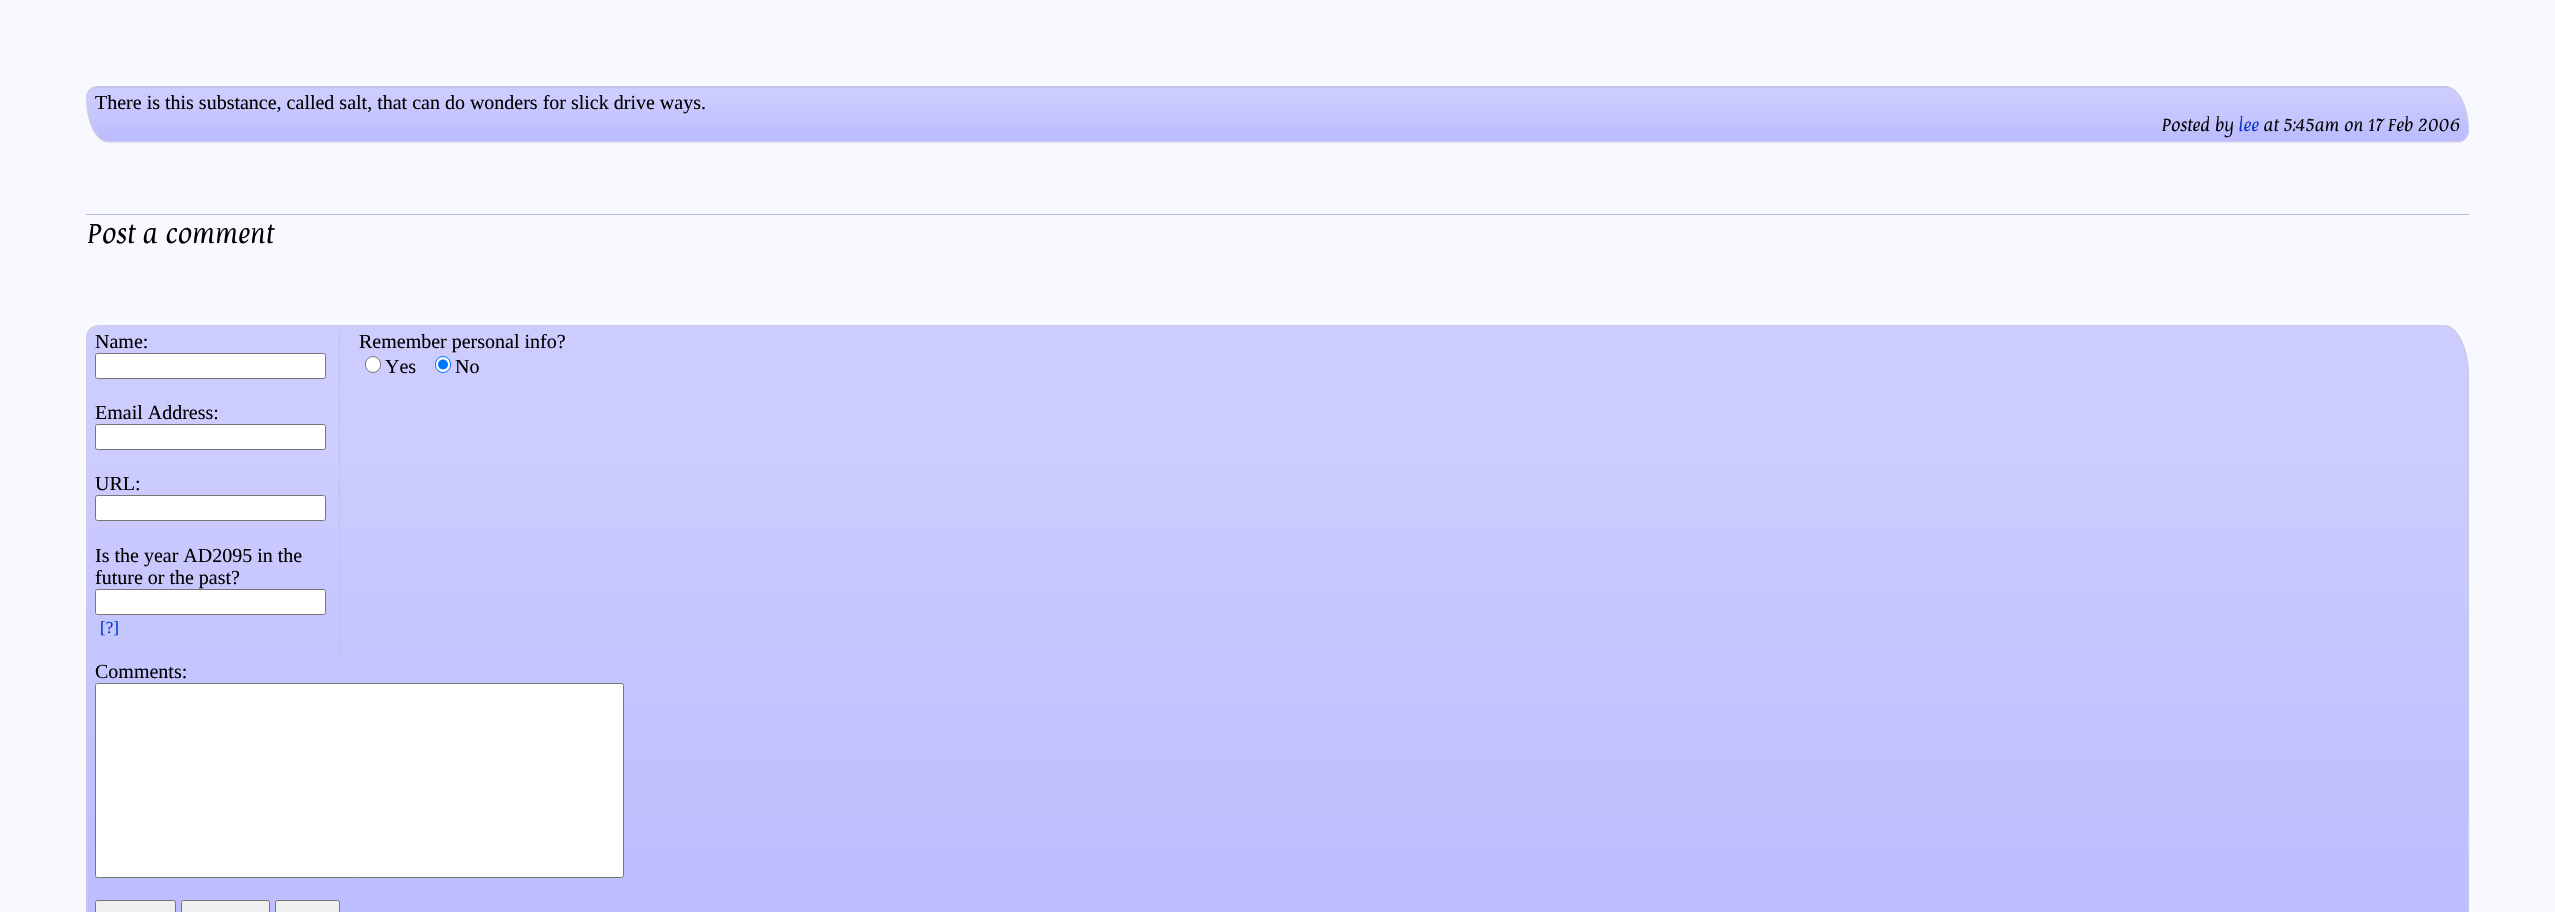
#include "include/core/SkBlurTypes.h"
#include "include/core/SkCanvas.h"
#include "include/core/SkData.h"
#include "include/core/SkFont.h"
#include "include/core/SkFontMgr.h"
#include "include/core/SkImage.h"
#include "include/core/SkMaskFilter.h"
#include "include/core/SkPaint.h"
#include "include/core/SkPathBuilder.h"
#include "include/core/SkTextBlob.h"
#include "include/effects/SkDashPathEffect.h"
#include "include/effects/SkGradientShader.h"
#include "include/utils/SkParsePath.h"

extern sk_sp<SkFontMgr> fontMgr;

static SkFont font(const char* family, int weight, float size, bool italic = false) {
    SkFontStyle style(weight, SkFontStyle::kNormal_Width,
        italic ? SkFontStyle::kItalic_Slant : SkFontStyle::kUpright_Slant);
    SkFont result(fontMgr->matchFamilyStyle(family, style), size);
    result.setSubpixel(true);
    return result;
}

static void drawLabel(SkCanvas* canvas, const char* s, float x, float y, const SkFont& font, SkColor color) {
    SkPaint ink(SkColor4f::FromColor(color));
    ink.setAntiAlias(true);
    canvas->drawString(s, x, y, font, ink);
}

static void fillRect(SkCanvas* canvas, float x, float y, float w, float h, SkColor color) {
    SkPaint ink(SkColor4f::FromColor(color));
    ink.setAntiAlias(true);
    canvas->drawRect(SkRect::MakeXYWH(x, y, w, h), ink);
}

static SkPath parsePath(const char* data, bool evenOdd = false) {
    SkPath result = *SkParsePath::FromSVGString(data);
    if (evenOdd) result.setFillType(SkPathFillType::kEvenOdd);
    return result;
}

void draw(SkCanvas* canvas) {
    SkPaint paint;
    paint.setAntiAlias(true);
    canvas->clear(0xFFF8F8FF);
    {
        const SkColor colors[] = {0xFFCCCCFF, 0xFFBBBBFF};
        const float stops[] = {0, 1};
        const SkPoint ends[] = {{88, 45}, {88, 88}};
        paint.setShader(SkGradientShader::MakeLinear(ends, colors, stops, 2, SkTileMode::kClamp));
        paint.setAlpha(255);
    }
    canvas->drawPath(parsePath("M98 86H2446C2448 86 2451 87 2452 88H91C93 87 95 86 98 86Z"), paint);
    {
        const SkColor colors[] = {0xFFCCCCFF, 0xFFBBBBFF};
        const float stops[] = {0, 1};
        const SkPoint ends[] = {{88, 98}, {88, 141}};
        paint.setShader(SkGradientShader::MakeLinear(ends, colors, stops, 2, SkTileMode::kClamp));
        paint.setAlpha(255);
    }
    canvas->drawPath(parsePath("M103 141C93 136 86 118 86 98C86 94 88 90 91 88H2452C2462 93 2469 111 2469 131C2469 135 2466 139 2463 141Z"), paint);
    {
        const SkColor colors[] = {0xFFCCCCFF, 0xFFBBBBFF};
        const float stops[] = {0, 1};
        const SkPoint ends[] = {{88, 152}, {88, 195}};
        paint.setShader(SkGradientShader::MakeLinear(ends, colors, stops, 2, SkTileMode::kClamp));
        paint.setAlpha(255);
    }
    canvas->drawPath(parsePath("M2463 141C2461 142 2460 142 2458 142H109C107 142 105 142 103 141Z"), paint);
    paint.setStroke(true);
    paint.setStrokeWidth(1.2f);
    paint.setShader(nullptr);
    paint.setColor(0xFFCCCCDD);
    canvas->drawPath(parsePath("M97.5 87H2446C2458.5 87 2468 106.5 2468 131C2468 137 2463.5 142 2457.5 142H109C96.5 142 87 122 87 97.5C87 91.5 91.5 87 97.5 87Z"), paint);
    SkFont font1 = font("Liberation Serif", 400, 20);
    drawLabel(canvas, "There is this substance, called salt, that can do wonders for slick drive ways.", 95, 109, font1, 0xFF000000);
    SkFont font2 = font("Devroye", 400, 16);
    drawLabel(canvas, "Posted by", 2161, 131, font2, 0xFF000000);
    drawLabel(canvas, "lee", 2238, 131, font2, 0xFF0033CC);
    drawLabel(canvas, "at 5:45am on 17 Feb 2006", 2263, 131, font2, 0xFF000000);
    fillRect(canvas, 86, 214, 2383, 1, 0xFFBBBBDD);
    SkFont font3 = font("Devroye", 400, 25);
    drawLabel(canvas, "Post a comment", 86, 243, font3, 0xFF000000);
    paint.setStroke(false);
    {
        const SkColor colors[] = {0xFFCCCCFF, 0xFFBBBBFF};
        const float stops[] = {0, 1};
        const SkPoint ends[] = {{88, 452}, {88, 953}};
        paint.setShader(SkGradientShader::MakeLinear(ends, colors, stops, 2, SkTileMode::kClamp));
        paint.setAlpha(255);
    }
    canvas->drawPath(parsePath("M107 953C95 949 86 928 86 904V338C86 332 89 328 94 326H2449C2460 331 2469 351 2469 375V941C2469 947 2465 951 2461 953Z"), paint);
    paint.setStroke(true);
    paint.setShader(nullptr);
    paint.setColor(0xFFCCCCDD);
    canvas->drawPath(parsePath("M99 325.5H2444C2457 325.5 2468 347.5 2468 375V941C2468 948 2463 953 2456 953H111C98 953 87 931 87 904V337.5C87 331 92 325.5 99 325.5Z"), paint);
    paint.setColor(0xFFBBBBBB);
    paint.setPathEffect(SkDashPathEffect::Make({{1.25f, 1.25f}}, 0));
    canvas->drawPath(parsePath("M339.5 330V660"), paint);
    paint.setPathEffect(nullptr);
    drawLabel(canvas, "Name:", 95, 348, font1, 0xFF000000);
    paint.setStroke(false);
    paint.setColor(0xFFFFFFFF);
    canvas->drawRoundRect(SkRect::MakeXYWH(95.5f, 353.5f, 230, 25), 2, 2, paint);
    paint.setStroke(true);
    paint.setStrokeWidth(1);
    paint.setColor(0xFF767676);
    canvas->drawRoundRect(SkRect::MakeXYWH(95.5f, 353.5f, 230, 25), 2, 2, paint);
    drawLabel(canvas, "Email Address:", 95, 419, font1, 0xFF000000);
    paint.setStroke(false);
    paint.setColor(0xFFFFFFFF);
    canvas->drawRoundRect(SkRect::MakeXYWH(95.5f, 424.5f, 230, 25), 2, 2, paint);
    paint.setStroke(true);
    paint.setColor(0xFF767676);
    canvas->drawRoundRect(SkRect::MakeXYWH(95.5f, 424.5f, 230, 25), 2, 2, paint);
    drawLabel(canvas, "URL:", 95, 490, font1, 0xFF000000);
    paint.setStroke(false);
    paint.setColor(0xFFFFFFFF);
    canvas->drawRoundRect(SkRect::MakeXYWH(95.5f, 495.5f, 230, 25), 2, 2, paint);
    paint.setStroke(true);
    paint.setColor(0xFF767676);
    canvas->drawRoundRect(SkRect::MakeXYWH(95.5f, 495.5f, 230, 25), 2, 2, paint);
    drawLabel(canvas, "Is the year AD2095 in the", 95, 562, font1, 0xFF000000);
    drawLabel(canvas, "future or the past?", 95, 584, font1, 0xFF000000);
    paint.setStroke(false);
    paint.setColor(0xFFFFFFFF);
    canvas->drawRoundRect(SkRect::MakeXYWH(95.5f, 589.5f, 230, 25), 2, 2, paint);
    paint.setStroke(true);
    paint.setColor(0xFF767676);
    canvas->drawRoundRect(SkRect::MakeXYWH(95.5f, 589.5f, 230, 25), 2, 2, paint);
    SkFont font4 = font("Liberation Serif", 400, 17);
    drawLabel(canvas, "[?]", 100, 633, font4, 0xFF0033CC);
    drawLabel(canvas, "Remember personal info?", 359, 348, font1, 0xFF000000);
    paint.setStroke(false);
    paint.setColor(0xFFFFFFFF);
    canvas->drawRoundRect(SkRect::MakeXYWH(365.5f, 356.5f, 15, 16), 7.5f, 7.5f, paint);
    paint.setStroke(true);
    paint.setColor(0xFF767676);
    canvas->drawRoundRect(SkRect::MakeXYWH(365.5f, 356.5f, 15, 16), 7.5f, 7.5f, paint);
    drawLabel(canvas, "Yes", 385, 373, font1, 0xFF000000);
    paint.setStroke(false);
    paint.setColor(0xFFFFFFFF);
    canvas->drawRoundRect(SkRect::MakeXYWH(435.5f, 356.5f, 15, 16), 7.5f, 7.5f, paint);
    paint.setStroke(true);
    paint.setColor(0xFF0075FF);
    canvas->drawRoundRect(SkRect::MakeXYWH(435.5f, 356.5f, 15, 16), 7.5f, 7.5f, paint);
    paint.setStroke(false);
    canvas->drawCircle(443, 364.5f, 5, paint);
    drawLabel(canvas, "No", 455, 373, font1, 0xFF000000);
    drawLabel(canvas, "Comments:", 95, 678, font1, 0xFF000000);
    paint.setColor(0xFFFFFFFF);
    canvas->drawRoundRect(SkRect::MakeXYWH(95.5f, 683.5f, 528, 194), 2, 2, paint);
    paint.setStroke(true);
    paint.setColor(0xFF767676);
    canvas->drawRoundRect(SkRect::MakeXYWH(95.5f, 683.5f, 528, 194), 2, 2, paint);
    paint.setStroke(false);
    paint.setColor(0xFFEFEFEF);
    canvas->drawRoundRect(SkRect::MakeXYWH(95.5f, 900.5f, 80, 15), 2, 2, paint);
    paint.setStroke(true);
    paint.setColor(0xFF767676);
    canvas->drawRoundRect(SkRect::MakeXYWH(95.5f, 900.5f, 80, 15), 2, 2, paint);
    paint.setStroke(false);
    paint.setColor(0xFFEFEFEF);
    canvas->drawRoundRect(SkRect::MakeXYWH(181.5f, 900.5f, 88, 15), 2, 2, paint);
    paint.setStroke(true);
    paint.setColor(0xFF767676);
    canvas->drawRoundRect(SkRect::MakeXYWH(181.5f, 900.5f, 88, 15), 2, 2, paint);
    paint.setStroke(false);
    paint.setColor(0xFFEFEFEF);
    canvas->drawRoundRect(SkRect::MakeXYWH(275.5f, 900.5f, 64, 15), 2, 2, paint);
    paint.setStroke(true);
    paint.setColor(0xFF767676);
    canvas->drawRoundRect(SkRect::MakeXYWH(275.5f, 900.5f, 64, 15), 2, 2, paint);
}
